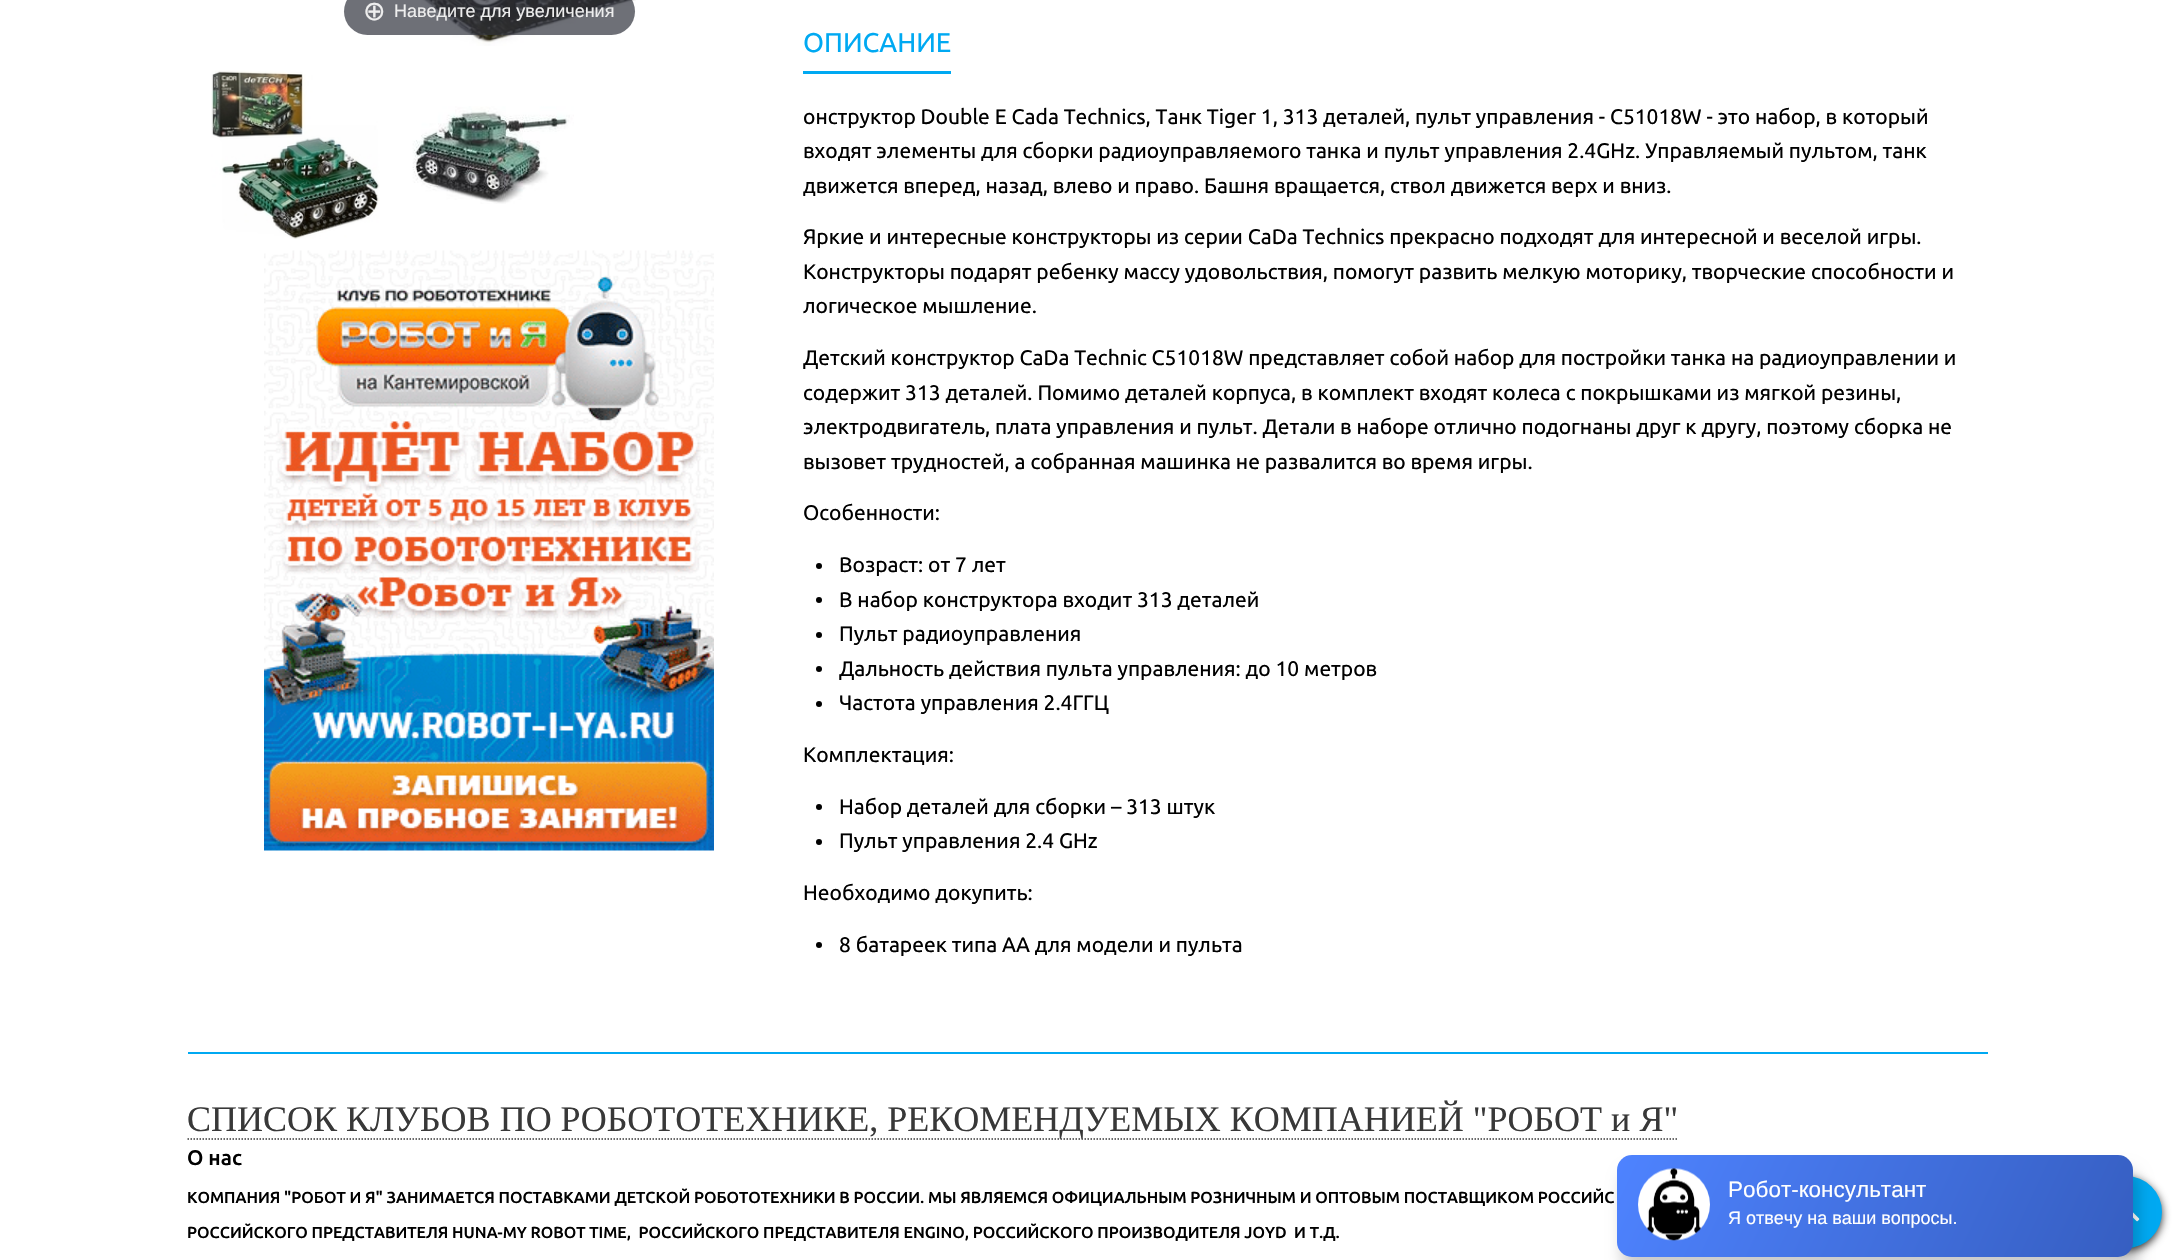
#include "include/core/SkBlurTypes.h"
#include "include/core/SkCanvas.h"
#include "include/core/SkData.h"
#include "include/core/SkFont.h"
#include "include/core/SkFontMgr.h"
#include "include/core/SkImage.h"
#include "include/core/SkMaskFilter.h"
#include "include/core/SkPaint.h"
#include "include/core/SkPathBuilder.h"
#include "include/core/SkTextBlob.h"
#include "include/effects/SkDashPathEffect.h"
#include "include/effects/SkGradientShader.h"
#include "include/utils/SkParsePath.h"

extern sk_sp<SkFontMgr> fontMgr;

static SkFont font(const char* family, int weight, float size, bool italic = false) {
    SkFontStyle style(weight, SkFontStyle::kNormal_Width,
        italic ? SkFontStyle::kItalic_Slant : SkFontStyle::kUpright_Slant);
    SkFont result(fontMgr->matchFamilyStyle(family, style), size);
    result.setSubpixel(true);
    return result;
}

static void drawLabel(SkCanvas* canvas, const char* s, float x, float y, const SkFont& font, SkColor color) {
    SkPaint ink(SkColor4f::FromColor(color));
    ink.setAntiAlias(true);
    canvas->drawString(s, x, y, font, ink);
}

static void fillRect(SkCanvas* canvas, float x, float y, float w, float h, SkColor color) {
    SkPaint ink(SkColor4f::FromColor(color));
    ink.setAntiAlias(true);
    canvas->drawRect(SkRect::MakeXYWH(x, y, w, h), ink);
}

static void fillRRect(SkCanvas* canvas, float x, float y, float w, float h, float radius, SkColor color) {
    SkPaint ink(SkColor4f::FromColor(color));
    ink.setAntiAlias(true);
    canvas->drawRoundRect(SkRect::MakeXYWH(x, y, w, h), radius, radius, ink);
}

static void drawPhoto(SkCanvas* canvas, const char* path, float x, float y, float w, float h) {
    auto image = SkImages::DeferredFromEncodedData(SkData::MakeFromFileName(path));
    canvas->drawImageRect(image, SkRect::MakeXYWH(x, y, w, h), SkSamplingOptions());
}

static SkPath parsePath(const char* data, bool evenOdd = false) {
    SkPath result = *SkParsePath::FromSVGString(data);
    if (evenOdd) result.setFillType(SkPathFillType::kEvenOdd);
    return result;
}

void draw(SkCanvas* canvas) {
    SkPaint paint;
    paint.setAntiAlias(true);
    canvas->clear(0xFFFFFFFF);
    drawPhoto(canvas, "assets/img1.png", 421, 0, 215, 46);
    fillRRect(canvas, 344, -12, 291, 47, 23.5f, 0xB331333D);
    SkFont font1 = font("DejaVu Sans", 400, 27);
    drawLabel(canvas, "⊕", 363, 20, font1, 0xFFEEEEEE);
    SkFont font2 = font("Liberation Sans", 400, 18);
    drawLabel(canvas, "Наведите для увеличения", 394, 17, font2, 0xFFEEEEEE);
    drawPhoto(canvas, "assets/img2.png", 211, 70, 169, 169);
    drawPhoto(canvas, "assets/img3.png", 412, 106, 162, 98);
    drawPhoto(canvas, "assets/img4.png", 264, 250, 450, 601);
    fillRect(canvas, 803, 71, 148, 3, 0xFF00A9F2);
    SkFont font3 = font("Ubuntu", 400, 27);
    drawLabel(canvas, "ОПИСАНИЕ", 803, 52, font3, 0xFF00A9F2);
    SkFont font4 = font("Ubuntu", 400, 21);
    drawLabel(canvas, "онструктор Double E Cada Technics, Танк Tiger 1, 313 деталей, пульт управления - C51018W - это набор, в который", 803, 124, font4, 0xFF000000);
    drawLabel(canvas, "входят элементы для сборки радиоуправляемого танка и пульт управления 2.4GHz. Управляемый пультом, танк", 803, 158, font4, 0xFF000000);
    drawLabel(canvas, "движется вперед, назад, влево и право. Башня вращается, ствол движется верх и вниз.", 803, 193, font4, 0xFF000000);
    drawLabel(canvas, "Яркие и интересные конструкторы из серии CaDa Technics прекрасно подходят для интересной и веселой игры.", 803, 244, font4, 0xFF000000);
    drawLabel(canvas, "Конструкторы подарят ребенку массу удовольствия, помогут развить мелкую моторику, творческие способности и", 803, 279, font4, 0xFF000000);
    drawLabel(canvas, "логическое мышление.", 803, 313, font4, 0xFF000000);
    drawLabel(canvas, "Детский конструктор CaDa Technic C51018W представляет собой набор для постройки танка на радиоуправлении и", 803, 365, font4, 0xFF000000);
    drawLabel(canvas, "содержит 313 деталей. Помимо деталей корпуса, в комплект входят колеса с покрышками из мягкой резины,", 803, 400, font4, 0xFF000000);
    drawLabel(canvas, "электродвигатель, плата управления и пульт. Детали в наборе отлично подогнаны друг к другу, поэтому сборка не", 803, 434, font4, 0xFF000000);
    drawLabel(canvas, "вызовет трудностей, а собранная машинка не развалится во время игры.", 803, 469, font4, 0xFF000000);
    drawLabel(canvas, "Особенности:", 803, 520, font4, 0xFF000000);
    paint.setColor(0xFF000000);
    canvas->drawCircle(819, 566, 3, paint);
    drawLabel(canvas, "Возраст: от 7 лет", 839, 572, font4, 0xFF000000);
    canvas->drawCircle(819, 600, 3, paint);
    drawLabel(canvas, "В набор конструктора входит 313 деталей", 839, 607, font4, 0xFF000000);
    canvas->drawCircle(819, 635, 3, paint);
    drawLabel(canvas, "Пульт радиоуправления", 839, 641, font4, 0xFF000000);
    canvas->drawCircle(819, 669, 3, paint);
    drawLabel(canvas, "Дальность действия пульта управления: до 10 метров", 839, 676, font4, 0xFF000000);
    canvas->drawCircle(819, 704, 3, paint);
    drawLabel(canvas, "Частота управления 2.4ГГЦ", 839, 710, font4, 0xFF000000);
    drawLabel(canvas, "Комплектация:", 803, 762, font4, 0xFF000000);
    canvas->drawCircle(819, 807, 3, paint);
    drawLabel(canvas, "Набор деталей для сборки – 313 штук", 839, 814, font4, 0xFF000000);
    canvas->drawCircle(819, 842, 3, paint);
    drawLabel(canvas, "Пульт управления 2.4 GHz", 839, 848, font4, 0xFF000000);
    drawLabel(canvas, "Необходимо докупить:", 803, 900, font4, 0xFF000000);
    canvas->drawCircle(819, 945, 3, paint);
    drawLabel(canvas, "8 батареек типа АА для модели и пульта", 839, 952, font4, 0xFF000000);
    fillRect(canvas, 188, 1052, 1800, 2, 0xFF00A9F2);
    paint.setStroke(true);
    paint.setStrokeWidth(1.5f);
    paint.setColor(0xFF383838);
    paint.setPathEffect(SkDashPathEffect::Make({{1.5f, 1.5f}}, 0));
    canvas->drawPath(parsePath("M187.5 1139H1678.5"), paint);
    paint.setPathEffect(nullptr);
    SkFont font5 = font("Liberation Serif", 400, 36);
    drawLabel(canvas, "СПИСОК КЛУБОВ ПО РОБОТОТЕХНИКЕ, РЕКОМЕНДУЕМЫХ КОМПАНИЕЙ \"РОБОТ и Я\"", 187, 1131, font5, 0xFF383838);
    SkFont font6 = font("Ubuntu", 500, 21);
    drawLabel(canvas, "О нас", 187, 1165, font6, 0xFF000000);
    SkFont font7 = font("Ubuntu", 500, 16);
    drawLabel(canvas, "КОМПАНИЯ \"РОБОТ И Я\" ЗАНИМАЕТСЯ ПОСТАВКАМИ ДЕТСКОЙ РОБОТОТЕХНИКИ В РОССИИ. МЫ ЯВЛЯЕМСЯ ОФИЦИАЛЬНЫМ РОЗНИЧНЫМ И ОПТОВЫМ ПОСТАВЩИКОМ РОССИЙС", 187, 1203, font7, 0xFF000000);
    drawLabel(canvas, "РОССИЙСКОГО ПРЕДСТАВИТЕЛЯ HUNA-MY ROBOT TIME,  РОССИЙСКОГО ПРЕДСТАВИТЕЛЯ ENGINO, РОССИЙСКОГО ПРОИЗВОДИТЕЛЯ JOYD  И Т.Д.", 187, 1238, font7, 0xFF000000);
    paint.setStroke(false);
    paint.setColor(0xFF333333);
    paint.setMaskFilter(SkMaskFilter::MakeBlur(kNormal_SkBlurStyle, 4.5f));
    canvas->drawRoundRect(SkRect::MakeXYWH(2090, 1179, 72, 72), 36, 36, paint);
    paint.setMaskFilter(nullptr);
    paint.setColor(0xFF00A9F2);
    canvas->drawCircle(2126, 1212, 35, paint);
    paint.setStroke(true);
    paint.setStrokeWidth(2);
    canvas->drawCircle(2126, 1212, 35, paint);
    drawPhoto(canvas, "assets/img5.png", 2133, 1212, 7, 10);
    paint.setStroke(false);
    paint.setColor(0x33000000);
    paint.setMaskFilter(SkMaskFilter::MakeBlur(kNormal_SkBlurStyle, 7.5f));
    canvas->drawRoundRect(SkRect::MakeXYWH(1622, 1170, 516, 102), 15, 15, paint);
    paint.setMaskFilter(nullptr);
    {
        const SkColor colors[] = {0xFF365EC1, 0xFF4E83FF};
        const float stops[] = {0, 1};
        const SkPoint ends[] = {{2106, 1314}, {1644, 1098}};
        paint.setShader(SkGradientShader::MakeLinear(ends, colors, stops, 2, SkTileMode::kClamp));
        paint.setAlpha(255);
    }
    canvas->drawRoundRect(SkRect::MakeXYWH(1617, 1155, 516, 102), 15, 15, paint);
    drawPhoto(canvas, "assets/img6.png", 1638, 1168, 72, 73);
    SkFont font8 = font("Liberation Sans", 400, 22.5f);
    drawLabel(canvas, "Робот-консультант", 1728, 1197, font8, 0xFFFFFFFF);
    drawLabel(canvas, "Я отвечу на ваши вопросы.", 1728, 1224, font2, 0xFFFFFFFF);
}
